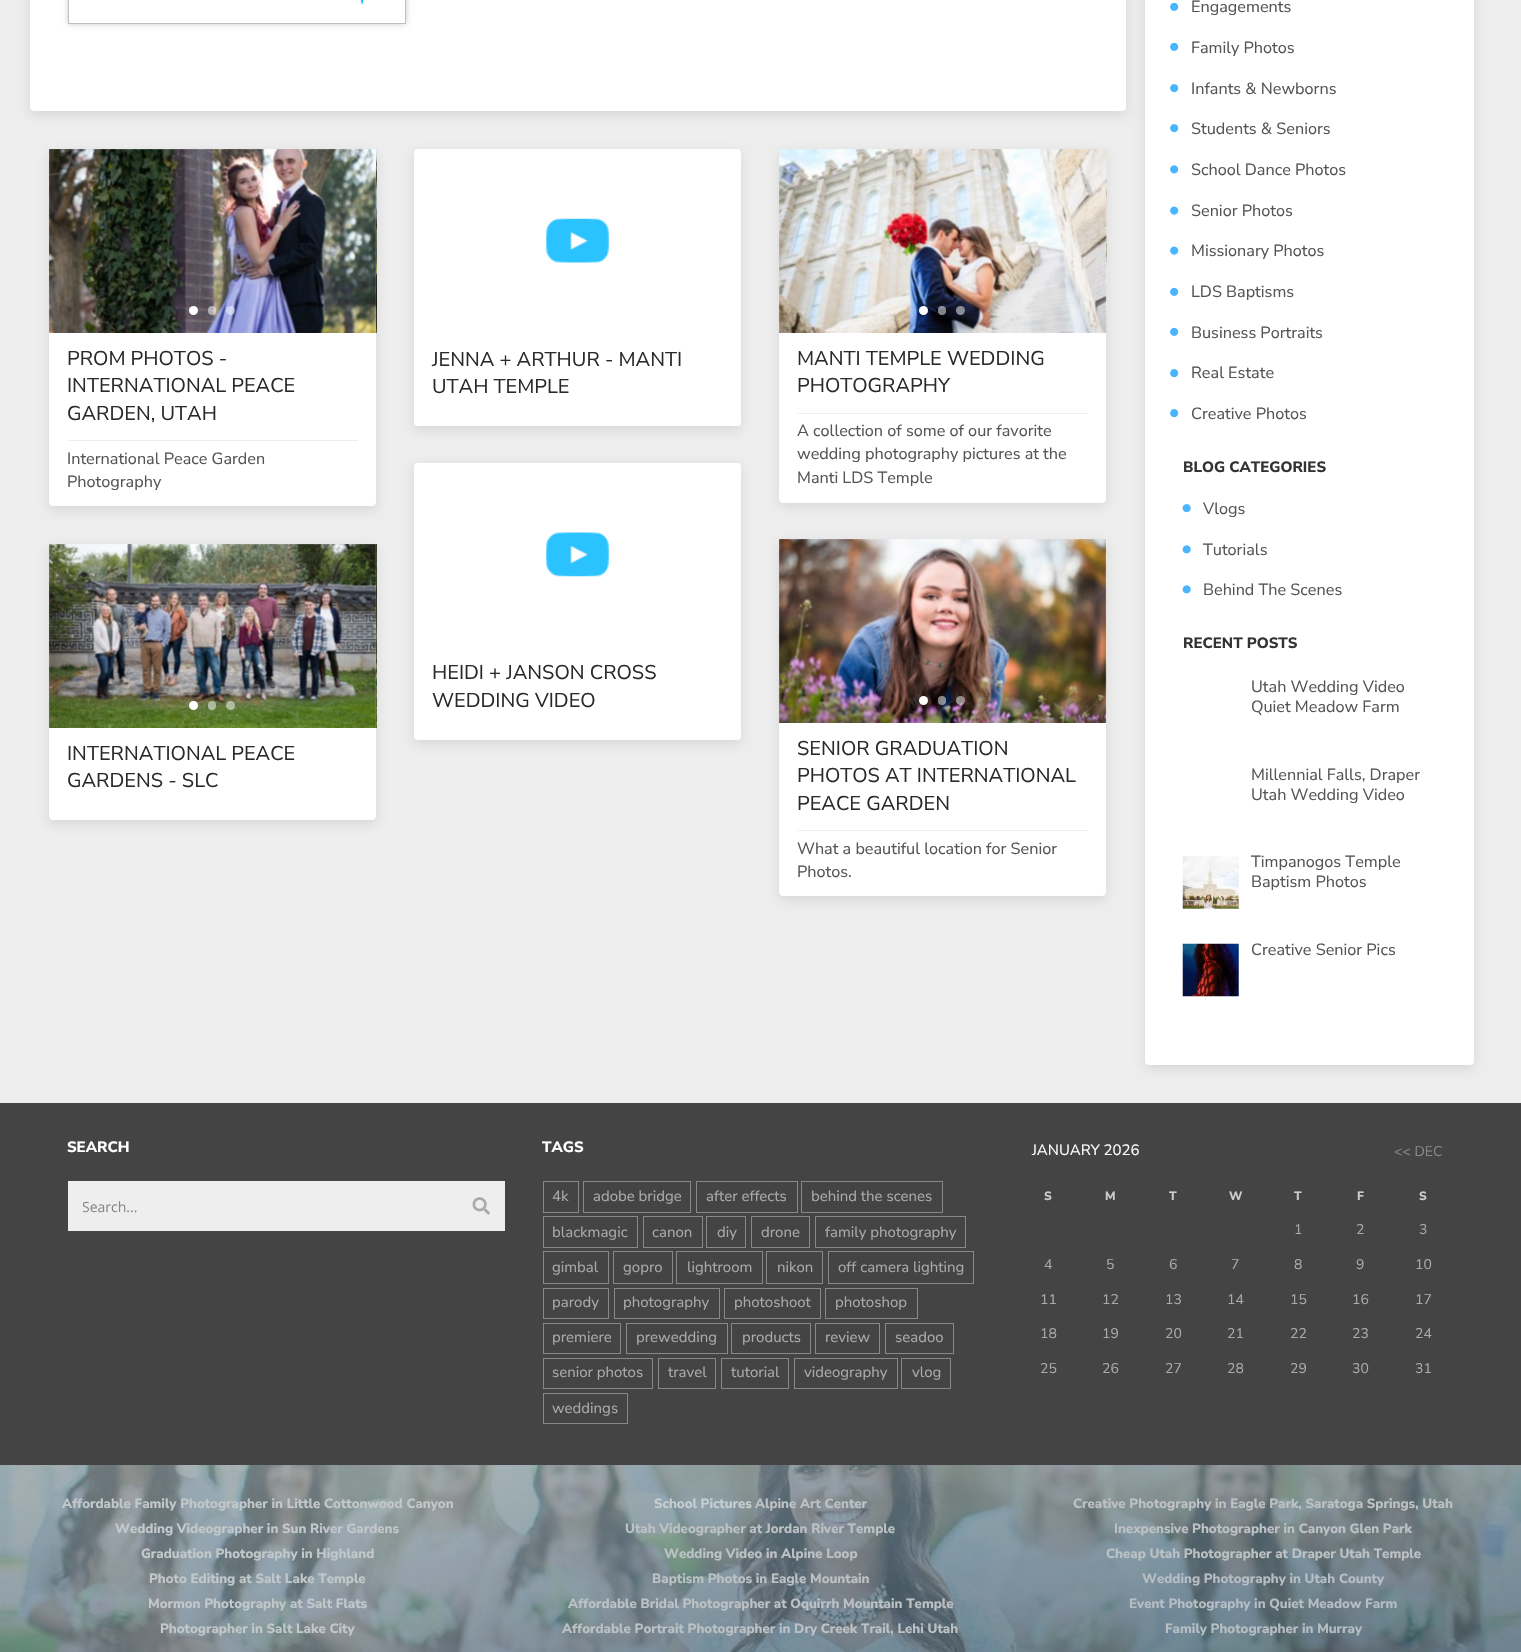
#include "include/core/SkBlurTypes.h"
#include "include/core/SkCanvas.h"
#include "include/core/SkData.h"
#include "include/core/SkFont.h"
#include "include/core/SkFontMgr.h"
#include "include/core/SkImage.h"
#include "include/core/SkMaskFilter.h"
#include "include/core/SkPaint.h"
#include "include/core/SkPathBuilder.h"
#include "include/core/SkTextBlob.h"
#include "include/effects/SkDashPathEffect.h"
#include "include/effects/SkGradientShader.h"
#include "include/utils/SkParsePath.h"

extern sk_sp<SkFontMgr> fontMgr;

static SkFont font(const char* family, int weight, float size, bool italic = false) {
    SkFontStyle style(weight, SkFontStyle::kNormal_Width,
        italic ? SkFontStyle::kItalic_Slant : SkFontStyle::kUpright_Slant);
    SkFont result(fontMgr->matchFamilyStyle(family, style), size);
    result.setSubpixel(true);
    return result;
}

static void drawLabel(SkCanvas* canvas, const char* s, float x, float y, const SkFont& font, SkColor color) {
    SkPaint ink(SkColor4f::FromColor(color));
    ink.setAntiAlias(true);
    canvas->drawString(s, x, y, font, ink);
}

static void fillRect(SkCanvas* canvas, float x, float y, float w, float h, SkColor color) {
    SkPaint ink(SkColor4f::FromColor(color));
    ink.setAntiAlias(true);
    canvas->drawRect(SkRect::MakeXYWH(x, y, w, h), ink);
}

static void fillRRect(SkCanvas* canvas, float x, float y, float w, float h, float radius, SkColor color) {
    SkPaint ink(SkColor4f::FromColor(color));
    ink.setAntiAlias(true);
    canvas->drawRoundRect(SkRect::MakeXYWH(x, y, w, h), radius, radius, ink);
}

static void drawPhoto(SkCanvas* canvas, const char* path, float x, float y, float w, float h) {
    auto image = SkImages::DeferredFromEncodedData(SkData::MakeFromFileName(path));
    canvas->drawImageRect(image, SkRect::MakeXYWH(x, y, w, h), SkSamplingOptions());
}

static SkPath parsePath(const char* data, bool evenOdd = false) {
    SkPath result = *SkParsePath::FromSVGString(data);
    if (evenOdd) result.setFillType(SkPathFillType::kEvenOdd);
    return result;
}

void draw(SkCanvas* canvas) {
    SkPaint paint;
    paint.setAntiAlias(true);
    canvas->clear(0xFFEEEEEE);
    paint.setColor(0x1A000000);
    paint.setMaskFilter(SkMaskFilter::MakeBlur(kNormal_SkBlurStyle, 6));
    canvas->drawRoundRect(SkRect::MakeXYWH(30, -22, 1096, 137), 4, 4, paint);
    paint.setMaskFilter(nullptr);
    fillRRect(canvas, 30, -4, 1096, 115, 4, 0xFFFFFFFF);
    paint.setColor(0x33000000);
    paint.setMaskFilter(SkMaskFilter::MakeBlur(kNormal_SkBlurStyle, 3));
    canvas->drawRect(SkRect::MakeXYWH(68, -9, 338, 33), paint);
    paint.setMaskFilter(nullptr);
    paint.setColor(0xFFFFFFFF);
    canvas->drawRect(SkRect::MakeXYWH(68.5f, -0.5f, 337, 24), paint);
    paint.setStroke(true);
    paint.setStrokeWidth(1);
    paint.setColor(0xFFC0C0C0);
    canvas->drawRect(SkRect::MakeXYWH(68.5f, -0.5f, 337, 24), paint);
    SkFont font1 = font("Nunito Sans", 400, 18);
    drawLabel(canvas, ",", 360, 2, font1, 0xFF01B6FF);
    paint.setStroke(false);
    paint.setColor(0x1A000000);
    paint.setMaskFilter(SkMaskFilter::MakeBlur(kNormal_SkBlurStyle, 6));
    canvas->drawRoundRect(SkRect::MakeXYWH(49, 153, 327, 357), 4, 4, paint);
    paint.setMaskFilter(nullptr);
    drawPhoto(canvas, "assets/img1.png", 49, 149, 328, 184);
    drawPhoto(canvas, "assets/img2.png", 376, 149, 1, 184);
    paint.setColor(0xFFFFFFFF);
    canvas->drawCircle(193.5f, 310.5f, 4.5f, paint);
    fillRRect(canvas, 208, 306, 8, 9, 4, 0x80FFFFFF);
    paint.setColor(0x80FFFFFF);
    canvas->drawCircle(230.5f, 310.5f, 4.5f, paint);
    paint.setColor(0xFFFFFFFF);
    canvas->drawPath(parsePath("M49 333H376V502C376 504 374 506 372 506H53C51 506 49 504 49 502Z"), paint);
    SkFont font2 = font("Nunito Sans", 400, 20);
    drawLabel(canvas, "PROM PHOTOS -", 67, 365, font2, 0xFF2A2A2A);
    drawLabel(canvas, "INTERNATIONAL PEACE", 67, 392, font2, 0xFF2A2A2A);
    drawLabel(canvas, "GARDEN, UTAH", 67, 420, font2, 0xFF2A2A2A);
    fillRect(canvas, 68, 440, 290, 1, 0xFFEEEEEE);
    SkFont font3 = font("Nunito Sans", 400, 16.25f);
    drawLabel(canvas, "International Peace Garden", 67, 464, font3, 0xFF555555);
    drawLabel(canvas, "Photography", 67, 487, font3, 0xFF555555);
    paint.setColor(0x1A000000);
    paint.setMaskFilter(SkMaskFilter::MakeBlur(kNormal_SkBlurStyle, 6));
    canvas->drawRoundRect(SkRect::MakeXYWH(414, 153, 327, 277), 4, 4, paint);
    paint.setMaskFilter(nullptr);
    fillRRect(canvas, 414, 149, 327, 277, 4, 0xFFFFFFFF);
    drawPhoto(canvas, "assets/img3.png", 546, 218, 63, 45);
    paint.setColor(0xFFFFFFFF);
    canvas->drawPath(parsePath("M414 334H741V422C741 424 739 426 737 426H418C416 426 414 424 414 422Z"), paint);
    drawLabel(canvas, "JENNA + ARTHUR - MANTI", 432, 366, font2, 0xFF2A2A2A);
    drawLabel(canvas, "UTAH TEMPLE", 432, 393, font2, 0xFF2A2A2A);
    paint.setColor(0x1A000000);
    paint.setMaskFilter(SkMaskFilter::MakeBlur(kNormal_SkBlurStyle, 6));
    canvas->drawRoundRect(SkRect::MakeXYWH(779, 153, 327, 353), 4, 4, paint);
    paint.setMaskFilter(nullptr);
    drawPhoto(canvas, "assets/img4.png", 779, 149, 328, 184);
    drawPhoto(canvas, "assets/img5.png", 1106, 149, 1, 184);
    paint.setColor(0xFFFFFFFF);
    canvas->drawCircle(923.5f, 310.5f, 4.5f, paint);
    fillRRect(canvas, 938, 306, 8, 9, 4, 0x80FFFFFF);
    paint.setColor(0x80FFFFFF);
    canvas->drawCircle(960.5f, 310.5f, 4.5f, paint);
    paint.setColor(0xFFFFFFFF);
    canvas->drawPath(parsePath("M779 333H1106V499C1106 501 1104 503 1102 503H783C781 503 779 501 779 499Z"), paint);
    drawLabel(canvas, "MANTI TEMPLE WEDDING", 797, 365, font2, 0xFF2A2A2A);
    drawLabel(canvas, "PHOTOGRAPHY", 797, 392, font2, 0xFF2A2A2A);
    fillRect(canvas, 798, 413, 290, 1, 0xFFEEEEEE);
    drawLabel(canvas, "A collection of some of our favorite", 797, 436, font3, 0xFF555555);
    drawLabel(canvas, "wedding photography pictures at the", 797, 459, font3, 0xFF555555);
    drawLabel(canvas, "Manti LDS Temple", 797, 483, font3, 0xFF555555);
    paint.setColor(0x1A000000);
    paint.setMaskFilter(SkMaskFilter::MakeBlur(kNormal_SkBlurStyle, 6));
    canvas->drawRoundRect(SkRect::MakeXYWH(414, 466, 327, 278), 4, 4, paint);
    paint.setMaskFilter(nullptr);
    fillRRect(canvas, 414, 463, 327, 277, 4, 0xFFFFFFFF);
    drawPhoto(canvas, "assets/img6.png", 546, 532, 63, 45);
    paint.setColor(0xFFFFFFFF);
    canvas->drawPath(parsePath("M414 648H741V736C741 738 739 740 737 740H418C416 740 414 738 414 736Z"), paint);
    drawLabel(canvas, "HEIDI + JANSON CROSS", 432, 679, font2, 0xFF2A2A2A);
    drawLabel(canvas, "WEDDING VIDEO", 432, 707, font2, 0xFF2A2A2A);
    paint.setColor(0x1A000000);
    paint.setMaskFilter(SkMaskFilter::MakeBlur(kNormal_SkBlurStyle, 6));
    canvas->drawRoundRect(SkRect::MakeXYWH(49, 548, 327, 276), 4, 4, paint);
    paint.setMaskFilter(nullptr);
    drawPhoto(canvas, "assets/img7.png", 49, 544, 328, 184);
    drawPhoto(canvas, "assets/img8.png", 376, 544, 1, 184);
    paint.setColor(0xFFFFFFFF);
    canvas->drawCircle(193.5f, 705.5f, 4.5f, paint);
    fillRRect(canvas, 208, 701, 8, 9, 4, 0x80FFFFFF);
    paint.setColor(0x80FFFFFF);
    canvas->drawCircle(230.5f, 705.5f, 4.5f, paint);
    paint.setColor(0xFFFFFFFF);
    canvas->drawPath(parsePath("M49 728H376V816C376 818 374 820 372 820H53C51 820 49 818 49 816Z"), paint);
    drawLabel(canvas, "INTERNATIONAL PEACE", 67, 760, font2, 0xFF2A2A2A);
    drawLabel(canvas, "GARDENS - SLC", 67, 787, font2, 0xFF2A2A2A);
    paint.setColor(0x1A000000);
    paint.setMaskFilter(SkMaskFilter::MakeBlur(kNormal_SkBlurStyle, 6));
    canvas->drawRoundRect(SkRect::MakeXYWH(779, 543, 327, 357), 4, 4, paint);
    paint.setMaskFilter(nullptr);
    drawPhoto(canvas, "assets/img9.png", 779, 539, 328, 184);
    drawPhoto(canvas, "assets/img10.png", 1106, 539, 1, 184);
    paint.setColor(0xFFFFFFFF);
    canvas->drawCircle(923.5f, 700.5f, 4.5f, paint);
    fillRRect(canvas, 938, 696, 8, 9, 4, 0x80FFFFFF);
    paint.setColor(0x80FFFFFF);
    canvas->drawCircle(960.5f, 700.5f, 4.5f, paint);
    paint.setColor(0xFFFFFFFF);
    canvas->drawPath(parsePath("M779 723H1106V892C1106 894 1104 896 1102 896H783C781 896 779 894 779 892Z"), paint);
    drawLabel(canvas, "SENIOR GRADUATION", 797, 755, font2, 0xFF2A2A2A);
    drawLabel(canvas, "PHOTOS AT INTERNATIONAL", 797, 782, font2, 0xFF2A2A2A);
    drawLabel(canvas, "PEACE GARDEN", 797, 810, font2, 0xFF2A2A2A);
    fillRect(canvas, 798, 830, 290, 1, 0xFFEEEEEE);
    drawLabel(canvas, "What a beautiful location for Senior", 797, 854, font3, 0xFF555555);
    drawLabel(canvas, "Photos.", 797, 877, font3, 0xFF555555);
    paint.setColor(0x1A000000);
    paint.setMaskFilter(SkMaskFilter::MakeBlur(kNormal_SkBlurStyle, 6));
    canvas->drawRoundRect(SkRect::MakeXYWH(1145, -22, 329, 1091), 4, 4, paint);
    paint.setMaskFilter(nullptr);
    fillRRect(canvas, 1145, -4, 329, 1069, 4, 0xFFFFFFFF);
    drawPhoto(canvas, "assets/img11.png", 1170, 2, 9, 9);
    drawLabel(canvas, "Engagements", 1191, 12, font3, 0xFF555555);
    drawPhoto(canvas, "assets/img11.png", 1170, 42, 9, 9);
    drawLabel(canvas, "Family Photos", 1191, 53, font3, 0xFF555555);
    drawPhoto(canvas, "assets/img12.png", 1170, 84, 9, 9);
    drawLabel(canvas, "Infants & Newborns", 1191, 94, font3, 0xFF555555);
    drawPhoto(canvas, "assets/img12.png", 1170, 124, 9, 9);
    drawLabel(canvas, "Students & Seniors", 1191, 134, font3, 0xFF555555);
    drawPhoto(canvas, "assets/img13.png", 1170, 165, 9, 9);
    drawLabel(canvas, "School Dance Photos", 1191, 175, font3, 0xFF555555);
    drawPhoto(canvas, "assets/img14.png", 1170, 206, 9, 9);
    drawLabel(canvas, "Senior Photos", 1191, 216, font3, 0xFF555555);
    drawPhoto(canvas, "assets/img14.png", 1170, 246, 9, 9);
    drawLabel(canvas, "Missionary Photos", 1191, 256, font3, 0xFF555555);
    drawPhoto(canvas, "assets/img11.png", 1170, 287, 9, 9);
    drawLabel(canvas, "LDS Baptisms", 1191, 297, font3, 0xFF555555);
    drawPhoto(canvas, "assets/img11.png", 1170, 327, 9, 9);
    drawLabel(canvas, "Business Portraits", 1191, 338, font3, 0xFF555555);
    drawPhoto(canvas, "assets/img12.png", 1170, 369, 9, 9);
    drawLabel(canvas, "Real Estate", 1191, 378, font3, 0xFF555555);
    drawPhoto(canvas, "assets/img12.png", 1170, 409, 9, 9);
    drawLabel(canvas, "Creative Photos", 1191, 419, font3, 0xFF555555);
    SkFont font4 = font("Nunito Sans", 800, 15);
    drawLabel(canvas, "BLOG CATEGORIES", 1183, 472, font4, 0xFF333333);
    drawPhoto(canvas, "assets/img15.png", 1182, 504, 9, 9);
    drawLabel(canvas, "Vlogs", 1203, 514, font3, 0xFF555555);
    drawPhoto(canvas, "assets/img16.png", 1182, 545, 9, 9);
    drawLabel(canvas, "Tutorials", 1203, 555, font3, 0xFF555555);
    drawPhoto(canvas, "assets/img16.png", 1182, 585, 9, 9);
    drawLabel(canvas, "Behind The Scenes", 1203, 595, font3, 0xFF555555);
    drawLabel(canvas, "RECENT POSTS", 1183, 648, font4, 0xFF333333);
    drawLabel(canvas, "Utah Wedding Video", 1251, 692, font3, 0xFF555555);
    drawLabel(canvas, "Quiet Meadow Farm", 1251, 712, font3, 0xFF555555);
    drawLabel(canvas, "Millennial Falls, Draper", 1251, 780, font3, 0xFF555555);
    drawLabel(canvas, "Utah Wedding Video", 1251, 800, font3, 0xFF555555);
    drawPhoto(canvas, "assets/img17.png", 1182, 856, 57, 53);
    drawLabel(canvas, "Timpanogos Temple", 1251, 867, font3, 0xFF555555);
    drawLabel(canvas, "Baptism Photos", 1251, 887, font3, 0xFF555555);
    drawPhoto(canvas, "assets/img18.png", 1182, 943, 57, 54);
    drawLabel(canvas, "Creative Senior Pics", 1251, 955, font3, 0xFF555555);
    fillRect(canvas, 0, 1103, 1521, 362, 0xFF444444);
    drawLabel(canvas, "SEARCH", 67, 1152, font4, 0xFFFFFFFF);
    fillRect(canvas, 68, 1181, 437, 50, 0xFFEEEEEE);
    drawPhoto(canvas, "assets/img19.png", 472, 1197, 18, 18);
    canvas->save();
    canvas->clipRect(SkRect::MakeXYWH(83, 1195, 352, 21));
    SkFont font5 = font("Open Sans", 400, 14);
    drawLabel(canvas, "Search...", 82, 1212, font5, 0xFF888888);
    canvas->restore();
    drawLabel(canvas, "TAGS", 542, 1152, font4, 0xFFFFFFFF);
    paint.setStroke(true);
    paint.setColor(0xFF888888);
    canvas->drawRect(SkRect::MakeXYWH(543.5f, 1181.5f, 35, 31), paint);
    SkFont font6 = font("Nunito Sans", 400, 15);
    drawLabel(canvas, "4k", 552, 1201, font6, 0xFFAAAAAA);
    canvas->drawRect(SkRect::MakeXYWH(583.5f, 1181.5f, 107, 31), paint);
    drawLabel(canvas, "adobe bridge", 593, 1201, font6, 0xFFAAAAAA);
    canvas->drawRect(SkRect::MakeXYWH(696.5f, 1181.5f, 101, 31), paint);
    drawLabel(canvas, "after effects", 706, 1201, font6, 0xFFAAAAAA);
    canvas->drawRect(SkRect::MakeXYWH(801.5f, 1181.5f, 141, 31), paint);
    drawLabel(canvas, "behind the scenes", 811, 1201, font6, 0xFFAAAAAA);
    canvas->drawRect(SkRect::MakeXYWH(543.5f, 1216.5f, 94, 31), paint);
    drawLabel(canvas, "blackmagic", 552, 1237, font6, 0xFFAAAAAA);
    canvas->drawRect(SkRect::MakeXYWH(643.5f, 1216.5f, 59, 31), paint);
    drawLabel(canvas, "canon", 652, 1237, font6, 0xFFAAAAAA);
    canvas->drawRect(SkRect::MakeXYWH(706.5f, 1216.5f, 39, 31), paint);
    drawLabel(canvas, "diy", 717, 1237, font6, 0xFFAAAAAA);
    canvas->drawRect(SkRect::MakeXYWH(751.5f, 1216.5f, 58, 31), paint);
    drawLabel(canvas, "drone", 761, 1237, font6, 0xFFAAAAAA);
    canvas->drawRect(SkRect::MakeXYWH(815.5f, 1216.5f, 150, 31), paint);
    drawLabel(canvas, "family photography", 825, 1237, font6, 0xFFAAAAAA);
    canvas->drawRect(SkRect::MakeXYWH(543.5f, 1251.5f, 65, 32), paint);
    drawLabel(canvas, "gimbal", 552, 1272, font6, 0xFFAAAAAA);
    canvas->drawRect(SkRect::MakeXYWH(613.5f, 1251.5f, 59, 32), paint);
    drawLabel(canvas, "gopro", 623, 1272, font6, 0xFFAAAAAA);
    canvas->drawRect(SkRect::MakeXYWH(676.5f, 1251.5f, 86, 32), paint);
    drawLabel(canvas, "lightroom", 687, 1272, font6, 0xFFAAAAAA);
    canvas->drawRect(SkRect::MakeXYWH(766.5f, 1251.5f, 56, 32), paint);
    drawLabel(canvas, "nikon", 777, 1272, font6, 0xFFAAAAAA);
    canvas->drawRect(SkRect::MakeXYWH(828.5f, 1251.5f, 145, 32), paint);
    drawLabel(canvas, "off camera lighting", 838, 1272, font6, 0xFFAAAAAA);
    canvas->drawRect(SkRect::MakeXYWH(543.5f, 1288.5f, 65, 30), paint);
    drawLabel(canvas, "parody", 552, 1307, font6, 0xFFAAAAAA);
    canvas->drawRect(SkRect::MakeXYWH(614.5f, 1288.5f, 105, 30), paint);
    drawLabel(canvas, "photography", 623, 1307, font6, 0xFFAAAAAA);
    canvas->drawRect(SkRect::MakeXYWH(724.5f, 1288.5f, 96, 30), paint);
    drawLabel(canvas, "photoshoot", 734, 1307, font6, 0xFFAAAAAA);
    canvas->drawRect(SkRect::MakeXYWH(825.5f, 1288.5f, 92, 30), paint);
    drawLabel(canvas, "photoshop", 835, 1307, font6, 0xFFAAAAAA);
    canvas->drawRect(SkRect::MakeXYWH(543.5f, 1323.5f, 77, 30), paint);
    drawLabel(canvas, "premiere", 552, 1342, font6, 0xFFAAAAAA);
    canvas->drawRect(SkRect::MakeXYWH(626.5f, 1323.5f, 101, 30), paint);
    drawLabel(canvas, "prewedding", 636, 1342, font6, 0xFFAAAAAA);
    canvas->drawRect(SkRect::MakeXYWH(731.5f, 1323.5f, 79, 30), paint);
    drawLabel(canvas, "products", 742, 1342, font6, 0xFFAAAAAA);
    canvas->drawRect(SkRect::MakeXYWH(815.5f, 1323.5f, 64, 30), paint);
    drawLabel(canvas, "review", 825, 1342, font6, 0xFFAAAAAA);
    canvas->drawRect(SkRect::MakeXYWH(885.5f, 1323.5f, 68, 30), paint);
    drawLabel(canvas, "seadoo", 895, 1342, font6, 0xFFAAAAAA);
    canvas->drawRect(SkRect::MakeXYWH(543.5f, 1358.5f, 109, 30), paint);
    drawLabel(canvas, "senior photos", 552, 1377, font6, 0xFFAAAAAA);
    canvas->drawRect(SkRect::MakeXYWH(658.5f, 1358.5f, 57, 30), paint);
    drawLabel(canvas, "travel", 668, 1377, font6, 0xFFAAAAAA);
    canvas->drawRect(SkRect::MakeXYWH(721.5f, 1358.5f, 67, 30), paint);
    drawLabel(canvas, "tutorial", 731, 1377, font6, 0xFFAAAAAA);
    canvas->drawRect(SkRect::MakeXYWH(794.5f, 1358.5f, 103, 30), paint);
    drawLabel(canvas, "videography", 804, 1377, font6, 0xFFAAAAAA);
    canvas->drawRect(SkRect::MakeXYWH(901.5f, 1358.5f, 49, 30), paint);
    drawLabel(canvas, "vlog", 912, 1377, font6, 0xFFAAAAAA);
    canvas->drawRect(SkRect::MakeXYWH(543.5f, 1393.5f, 84, 30), paint);
    drawLabel(canvas, "weddings", 552, 1413, font6, 0xFFAAAAAA);
    drawLabel(canvas, "JANUARY 2026", 1032, 1155, font6, 0xFFFFFFFF);
    SkFont font7 = font("Nunito Sans", 400, 14);
    drawLabel(canvas, "<< DEC", 1394, 1156, font7, 0xFF888888);
    SkFont font8 = font("Nunito Sans", 800, 12);
    drawLabel(canvas, "S", 1044, 1200, font8, 0xFFCCCCCC);
    drawLabel(canvas, "M", 1105, 1200, font8, 0xFFCCCCCC);
    drawLabel(canvas, "T", 1169, 1200, font8, 0xFFCCCCCC);
    drawLabel(canvas, "W", 1229, 1200, font8, 0xFFCCCCCC);
    drawLabel(canvas, "T", 1294, 1200, font8, 0xFFCCCCCC);
    drawLabel(canvas, "F", 1357, 1200, font8, 0xFFCCCCCC);
    drawLabel(canvas, "S", 1419, 1200, font8, 0xFFCCCCCC);
    drawLabel(canvas, "1", 1294, 1234, font7, 0xFFAAAAAA);
    drawLabel(canvas, "2", 1356, 1234, font7, 0xFFAAAAAA);
    drawLabel(canvas, "3", 1419, 1234, font7, 0xFFAAAAAA);
    drawLabel(canvas, "4", 1044, 1269, font7, 0xFFAAAAAA);
    drawLabel(canvas, "5", 1106, 1269, font7, 0xFFAAAAAA);
    drawLabel(canvas, "6", 1169, 1269, font7, 0xFFAAAAAA);
    drawLabel(canvas, "7", 1231, 1269, font7, 0xFFAAAAAA);
    drawLabel(canvas, "8", 1294, 1269, font7, 0xFFAAAAAA);
    drawLabel(canvas, "9", 1356, 1269, font7, 0xFFAAAAAA);
    drawLabel(canvas, "10", 1415, 1269, font7, 0xFFAAAAAA);
    drawLabel(canvas, "11", 1040, 1304, font7, 0xFFAAAAAA);
    drawLabel(canvas, "12", 1102, 1304, font7, 0xFFAAAAAA);
    drawLabel(canvas, "13", 1165, 1304, font7, 0xFFAAAAAA);
    drawLabel(canvas, "14", 1227, 1304, font7, 0xFFAAAAAA);
    drawLabel(canvas, "15", 1290, 1304, font7, 0xFFAAAAAA);
    drawLabel(canvas, "16", 1352, 1304, font7, 0xFFAAAAAA);
    drawLabel(canvas, "17", 1415, 1304, font7, 0xFFAAAAAA);
    drawLabel(canvas, "18", 1040, 1338, font7, 0xFFAAAAAA);
    drawLabel(canvas, "19", 1102, 1338, font7, 0xFFAAAAAA);
    drawLabel(canvas, "20", 1165, 1338, font7, 0xFFAAAAAA);
    drawLabel(canvas, "21", 1227, 1338, font7, 0xFFAAAAAA);
    drawLabel(canvas, "22", 1290, 1338, font7, 0xFFAAAAAA);
    drawLabel(canvas, "23", 1352, 1338, font7, 0xFFAAAAAA);
    drawLabel(canvas, "24", 1415, 1338, font7, 0xFFAAAAAA);
    drawLabel(canvas, "25", 1040, 1373, font7, 0xFFAAAAAA);
    drawLabel(canvas, "26", 1102, 1373, font7, 0xFFAAAAAA);
    drawLabel(canvas, "27", 1165, 1373, font7, 0xFFAAAAAA);
    drawLabel(canvas, "28", 1227, 1373, font7, 0xFFAAAAAA);
    drawLabel(canvas, "29", 1290, 1373, font7, 0xFFAAAAAA);
    drawLabel(canvas, "30", 1352, 1373, font7, 0xFFAAAAAA);
    drawLabel(canvas, "31", 1415, 1373, font7, 0xFFAAAAAA);
    drawPhoto(canvas, "assets/img20.png", 0, 1465, 1521, 187);
    SkFont font9 = font("Nunito Sans", 800, 13.3f);
    drawLabel(canvas, "Affordable Family Photographer in Little Cottonwood Canyon", 62, 1508, font9, 0xFFC2C8CA);
    drawLabel(canvas, "Wedding Videographer in Sun River Gardens", 115, 1533, font9, 0xFFC2C8CA);
    drawLabel(canvas, "Graduation Photography in Highland", 141, 1558, font9, 0xFFC2C8CA);
    drawLabel(canvas, "Photo Editing at Salt Lake Temple", 149, 1583, font9, 0xFFC2C8CA);
    drawLabel(canvas, "Mormon Photography at Salt Flats", 148, 1608, font9, 0xFFC2C8CA);
    drawLabel(canvas, "Photographer in Salt Lake City", 160, 1633, font9, 0xFFC2C8CA);
    drawLabel(canvas, "School Pictures", 654, 1508, font9, 0xFFC5CED1);
    drawLabel(canvas, "Alpine Art Center", 755, 1508, font9, 0xFFBCC1C4);
    drawLabel(canvas, "Utah Videographer at Jordan River Temple", 625, 1533, font9, 0xFFBCC1C4);
    drawLabel(canvas, "Wedding Video in Alpine Loop", 664, 1558, font9, 0xFFBCC1C4);
    drawLabel(canvas, "Baptism Photos in Eagle Mountain", 652, 1583, font9, 0xFFBCC1C4);
    drawLabel(canvas, "Affordable Bridal Photographer at Oquirrh Mountain Temple", 568, 1608, font9, 0xFFBCC1C4);
    drawLabel(canvas, "Affordable Portrait Photographer in Dry Creek Trail, Lehi Utah", 562, 1633, font9, 0xFFBCC1C4);
    drawLabel(canvas, "Creative Photography in Eagle Park, Saratoga Springs, Utah", 1073, 1508, font9, 0xFFBCC1C4);
    drawLabel(canvas, "Inexpensive Photographer in Canyon Glen Park", 1114, 1533, font9, 0xFFBCC1C4);
    drawLabel(canvas, "Cheap Utah Photographer at Draper Utah Temple", 1106, 1558, font9, 0xFFBCC1C4);
    drawLabel(canvas, "Wedding Photography in Utah County", 1142, 1583, font9, 0xFFB6BEC4);
    drawLabel(canvas, "Event Photography in Quiet Meadow Farm", 1129, 1608, font9, 0xFFB6BEC4);
    drawLabel(canvas, "Family Photographer in Murray", 1165, 1633, font9, 0xFFB6BEC4);
}
